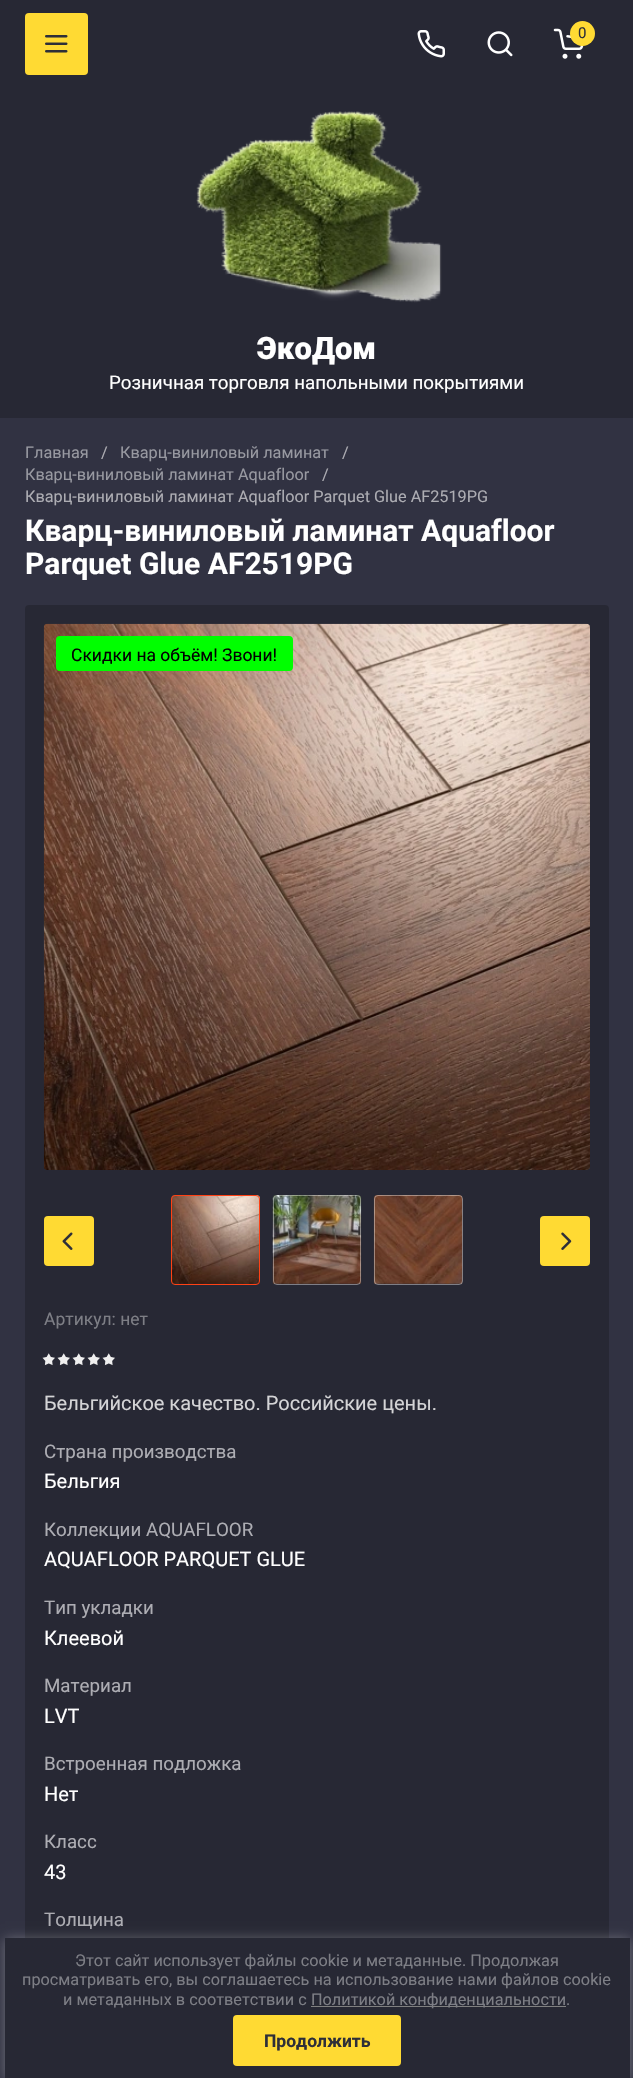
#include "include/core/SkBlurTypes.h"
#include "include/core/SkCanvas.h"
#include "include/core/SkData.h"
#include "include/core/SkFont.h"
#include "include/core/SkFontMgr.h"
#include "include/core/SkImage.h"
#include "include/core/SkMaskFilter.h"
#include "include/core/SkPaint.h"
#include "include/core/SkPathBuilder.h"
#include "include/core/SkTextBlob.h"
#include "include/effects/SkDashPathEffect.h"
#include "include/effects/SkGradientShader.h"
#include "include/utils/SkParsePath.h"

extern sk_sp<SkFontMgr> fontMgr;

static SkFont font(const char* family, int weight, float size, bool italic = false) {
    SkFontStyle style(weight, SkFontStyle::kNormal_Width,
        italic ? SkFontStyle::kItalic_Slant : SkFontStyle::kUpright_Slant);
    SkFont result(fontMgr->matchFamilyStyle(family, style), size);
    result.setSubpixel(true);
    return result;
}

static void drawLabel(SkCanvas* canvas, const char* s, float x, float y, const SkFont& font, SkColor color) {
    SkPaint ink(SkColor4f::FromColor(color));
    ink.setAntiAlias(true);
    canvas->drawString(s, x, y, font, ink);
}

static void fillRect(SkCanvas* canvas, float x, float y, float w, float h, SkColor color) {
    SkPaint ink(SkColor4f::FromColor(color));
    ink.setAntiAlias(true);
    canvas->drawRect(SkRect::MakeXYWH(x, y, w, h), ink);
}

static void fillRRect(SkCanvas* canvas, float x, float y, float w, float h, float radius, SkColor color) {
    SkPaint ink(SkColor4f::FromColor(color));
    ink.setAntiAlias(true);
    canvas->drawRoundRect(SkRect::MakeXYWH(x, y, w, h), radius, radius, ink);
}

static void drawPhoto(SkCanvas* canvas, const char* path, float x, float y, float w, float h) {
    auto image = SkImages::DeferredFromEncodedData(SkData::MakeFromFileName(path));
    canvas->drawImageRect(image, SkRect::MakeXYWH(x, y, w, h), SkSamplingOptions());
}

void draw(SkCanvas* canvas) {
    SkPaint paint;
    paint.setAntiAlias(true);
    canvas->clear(0xFF313242);
    fillRect(canvas, 0, 0, 633, 418, 0xFF272834);
    fillRRect(canvas, 25, 13, 63, 62, 4, 0xFFFFDA33);
    drawPhoto(canvas, "assets/img1.png", 45, 35, 23, 18);
    drawPhoto(canvas, "assets/img2.png", 417, 30, 28, 28);
    drawPhoto(canvas, "assets/img3.png", 487, 31, 26, 26);
    drawPhoto(canvas, "assets/img4.png", 553, 28, 31, 31);
    paint.setColor(0xFFFFDA33);
    canvas->drawCircle(582.5f, 33.5f, 12.5f, paint);
    SkFont font1 = font("Roboto", 400, 15);
    drawLabel(canvas, "0", 578, 38, font1, 0xFF2E2F38);
    drawPhoto(canvas, "assets/img5.png", 196, 111, 246, 192);
    SkFont font2 = font("Roboto", 900, 31);
    drawLabel(canvas, "ЭкоДом", 257, 359, font2, 0xFFFFFFFF);
    SkFont font3 = font("Roboto", 400, 18.75f);
    drawLabel(canvas, "Розничная торговля напольными покрытиями", 109, 389, font3, 0xFFFFFFFF);
    SkFont font4 = font("Roboto", 400, 16.25f);
    drawLabel(canvas, "Главная", 25, 458, font4, 0xFF9899A1);
    drawLabel(canvas, "/", 101, 458, font4, 0xFFADADB3);
    drawLabel(canvas, "Кварц-виниловый ламинат", 120, 458, font4, 0xFF9899A1);
    drawLabel(canvas, "/", 342, 458, font4, 0xFFADADB3);
    drawLabel(canvas, "Кварц-виниловый ламинат Aquafloor", 25, 480, font4, 0xFF9899A1);
    drawLabel(canvas, "/", 322, 480, font4, 0xFFADADB3);
    drawLabel(canvas, "Кварц-виниловый ламинат Aquafloor Parquet Glue AF2519PG", 25, 502, font4, 0xFFADADB3);
    SkFont font5 = font("Roboto", 700, 30);
    drawLabel(canvas, "Кварц-виниловый ламинат Aquafloor", 25, 541, font5, 0xFFFFFFFF);
    drawLabel(canvas, "Parquet Glue AF2519PG", 25, 574, font5, 0xFFFFFFFF);
    fillRRect(canvas, 25, 605, 584, 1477, 4, 0xFF272834);
    drawPhoto(canvas, "assets/img6.png", 43, 623, 547, 547);
    fillRRect(canvas, 44, 1216, 50, 50, 4, 0xFFFFDA33);
    drawPhoto(canvas, "assets/img7.png", 62, 1232, 11, 18);
    fillRRect(canvas, 540, 1216, 50, 50, 4, 0xFFFFDA33);
    drawPhoto(canvas, "assets/img8.png", 561, 1232, 11, 18);
    fillRRect(canvas, 56, 636, 237, 35, 4, 0xFF00FF00);
    SkFont font6 = font("Roboto", 400, 17.5f);
    drawLabel(canvas, "Скидки на объём! Звони!", 71, 661, font6, 0xFF000000);
    drawPhoto(canvas, "assets/img9.png", 171, 1195, 89, 89);
    paint.setStroke(true);
    paint.setStrokeWidth(1);
    paint.setColor(0xFFFF4114);
    canvas->drawRoundRect(SkRect::MakeXYWH(171.5f, 1195.5f, 88, 89), 3.5f, 3.5f, paint);
    drawPhoto(canvas, "assets/img10.png", 272, 1195, 90, 89);
    paint.setColor(0x66FFFFFF);
    canvas->drawRoundRect(SkRect::MakeXYWH(273.5f, 1195.5f, 87, 89), 3.5f, 3.5f, paint);
    drawPhoto(canvas, "assets/img11.png", 373, 1195, 90, 89);
    canvas->drawRoundRect(SkRect::MakeXYWH(374.5f, 1195.5f, 88, 89), 3.5f, 3.5f, paint);
    drawLabel(canvas, "Артикул: нет", 44, 1325, font6, 0xFF7D7E85);
    drawPhoto(canvas, "assets/img12.png", 42, 1353, 73, 13);
    SkFont font7 = font("Roboto", 400, 20);
    drawLabel(canvas, "Бельгийское качество. Российские цены.", 44, 1410, font7, 0xFFD4D4D6);
    drawLabel(canvas, "Страна производства", 44, 1458, font3, 0xFFADADB3);
    drawLabel(canvas, "Бельгия", 44, 1488, font7, 0xFFFFFFFF);
    drawLabel(canvas, "Коллекции AQUAFLOOR", 44, 1536, font3, 0xFFADADB3);
    drawLabel(canvas, "AQUAFLOOR PARQUET GLUE", 44, 1566, font7, 0xFFFFFFFF);
    drawLabel(canvas, "Тип укладки", 44, 1614, font3, 0xFFADADB3);
    drawLabel(canvas, "Клеевой", 44, 1645, font7, 0xFFFFFFFF);
    drawLabel(canvas, "Материал", 44, 1692, font3, 0xFFADADB3);
    drawLabel(canvas, "LVT", 44, 1723, font7, 0xFFFFFFFF);
    drawLabel(canvas, "Встроенная подложка", 44, 1770, font3, 0xFFADADB3);
    drawLabel(canvas, "Нет", 44, 1801, font7, 0xFFFFFFFF);
    drawLabel(canvas, "Класс", 44, 1848, font3, 0xFFADADB3);
    drawLabel(canvas, "43", 44, 1879, font7, 0xFFFFFFFF);
    drawLabel(canvas, "Толщина", 44, 1926, font3, 0xFFADADB3);
    paint.setStroke(false);
    paint.setColor(0x4DFFFFFF);
    paint.setMaskFilter(SkMaskFilter::MakeBlur(kNormal_SkBlurStyle, 6));
    canvas->drawRect(SkRect::MakeXYWH(5, 1939, 625, 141), paint);
    paint.setMaskFilter(nullptr);
    fillRect(canvas, 5, 1938, 625, 140, 0xFF272834);
    drawLabel(canvas, "Этот сайт использует файлы cookie и метаданные. Продолжая", 75, 1966, font4, 0xFF7D7E85);
    drawLabel(canvas, "просматривать его, вы соглашаетесь на использование нами файлов cookie", 22, 1985, font4, 0xFF7D7E85);
    drawLabel(canvas, "и метаданных в соответствии с", 63, 2005, font4, 0xFF7D7E85);
    fillRect(canvas, 311, 2006, 255, 1, 0xFF808080);
    drawLabel(canvas, "Политикой конфиденциальности.", 311, 2005, font4, 0xFF7D7E85);
    fillRRect(canvas, 233, 2015, 168, 51, 4, 0xFFFFDA33);
    SkFont font8 = font("Roboto", 700, 17.5f);
    drawLabel(canvas, "Продолжить", 264, 2047, font8, 0xFF2E2F38);
}
